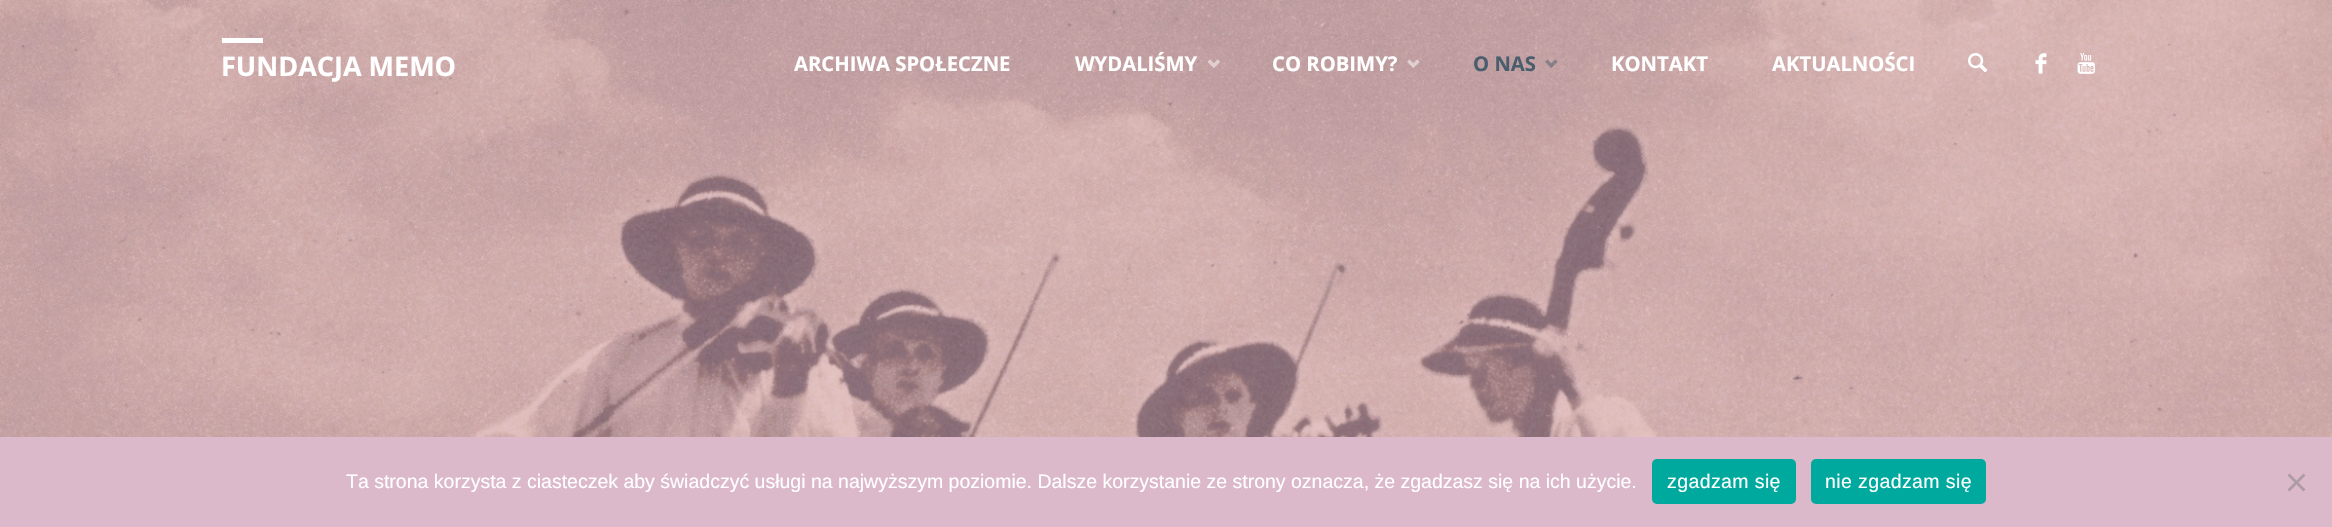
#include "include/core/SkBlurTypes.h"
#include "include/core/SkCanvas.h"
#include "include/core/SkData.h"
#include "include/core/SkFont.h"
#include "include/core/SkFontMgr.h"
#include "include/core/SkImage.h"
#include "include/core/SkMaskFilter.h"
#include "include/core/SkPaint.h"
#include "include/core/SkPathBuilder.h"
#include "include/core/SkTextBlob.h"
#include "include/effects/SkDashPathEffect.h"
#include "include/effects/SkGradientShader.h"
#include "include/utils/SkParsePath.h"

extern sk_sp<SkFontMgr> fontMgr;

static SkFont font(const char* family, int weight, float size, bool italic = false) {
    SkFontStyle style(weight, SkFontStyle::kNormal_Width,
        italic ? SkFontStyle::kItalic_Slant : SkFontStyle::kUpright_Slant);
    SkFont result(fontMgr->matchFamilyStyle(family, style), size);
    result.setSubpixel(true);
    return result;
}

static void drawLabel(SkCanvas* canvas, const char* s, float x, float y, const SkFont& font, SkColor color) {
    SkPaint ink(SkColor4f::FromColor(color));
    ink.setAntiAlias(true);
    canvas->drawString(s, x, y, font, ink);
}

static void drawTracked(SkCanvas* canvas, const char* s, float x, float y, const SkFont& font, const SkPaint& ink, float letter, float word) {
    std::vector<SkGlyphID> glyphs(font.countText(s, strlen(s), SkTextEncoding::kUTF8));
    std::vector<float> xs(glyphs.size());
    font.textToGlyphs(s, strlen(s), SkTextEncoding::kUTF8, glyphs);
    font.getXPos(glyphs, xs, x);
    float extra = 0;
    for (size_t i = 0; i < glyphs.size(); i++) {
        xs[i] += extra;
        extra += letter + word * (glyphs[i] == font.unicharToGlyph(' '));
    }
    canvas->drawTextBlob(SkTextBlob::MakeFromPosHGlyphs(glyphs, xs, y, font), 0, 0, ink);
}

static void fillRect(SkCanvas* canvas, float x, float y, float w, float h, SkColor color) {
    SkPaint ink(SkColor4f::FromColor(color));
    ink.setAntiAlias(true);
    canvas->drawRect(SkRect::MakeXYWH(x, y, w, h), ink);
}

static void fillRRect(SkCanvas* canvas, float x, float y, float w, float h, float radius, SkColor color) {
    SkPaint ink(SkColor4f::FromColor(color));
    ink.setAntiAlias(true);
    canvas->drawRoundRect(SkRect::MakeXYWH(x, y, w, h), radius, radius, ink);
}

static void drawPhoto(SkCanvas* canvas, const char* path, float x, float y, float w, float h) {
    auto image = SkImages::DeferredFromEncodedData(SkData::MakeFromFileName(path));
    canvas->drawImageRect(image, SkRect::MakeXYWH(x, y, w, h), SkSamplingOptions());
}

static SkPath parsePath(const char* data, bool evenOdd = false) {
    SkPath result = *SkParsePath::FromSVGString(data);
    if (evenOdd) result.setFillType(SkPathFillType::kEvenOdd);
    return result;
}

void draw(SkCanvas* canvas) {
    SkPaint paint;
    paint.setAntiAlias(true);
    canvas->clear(0xFFFFFFFF);
    drawPhoto(canvas, "assets/img1.png", 0, 0, 2332, 437);
    fillRect(canvas, 222, 38, 41, 5, 0xFFFFFFFF);
    SkFont font1 = font("Open Sans", 700, 27);
    drawLabel(canvas, "FUNDACJA MEMO", 221, 76, font1, 0xFFFFFFFF);
    SkFont font2 = font("Open Sans", 700, 20.25f);
    drawLabel(canvas, "ARCHIWA SPOŁECZNE", 794, 71, font2, 0xFFFFFFFF);
    drawLabel(canvas, "WYDALIŚMY", 1075, 71, font2, 0xFFFFFFFF);
    drawPhoto(canvas, "assets/img2.png", 1207, 59, 13, 9);
    drawLabel(canvas, "CO ROBIMY?", 1272, 71, font2, 0xFFFFFFFF);
    drawPhoto(canvas, "assets/img3.png", 1407, 59, 13, 9);
    drawLabel(canvas, "O NAS", 1473, 71, font2, 0xFF495D6D);
    drawPhoto(canvas, "assets/img4.png", 1545, 59, 13, 9);
    drawLabel(canvas, "KONTAKT", 1611, 71, font2, 0xFFFFFFFF);
    drawLabel(canvas, "AKTUALNOŚCI", 1772, 71, font2, 0xFFFFFFFF);
    drawPhoto(canvas, "assets/img5.png", 1968, 53, 20, 20);
    drawPhoto(canvas, "assets/img6.png", 2035, 53, 12, 21);
    drawPhoto(canvas, "assets/img7.png", 2077, 52, 18, 22);
    fillRect(canvas, 0, 437, 2332, 90, 0xFFDBB8CA);
    SkFont font3 = font("Liberation Sans", 400, 19.5f);
    drawLabel(canvas, "Ta strona korzysta z ciasteczek aby świadczyć usługi na najwyższym poziomie. Dalsze korzystanie ze strony oznacza, że zgadzasz się na ich użycie.", 346, 488, font3, 0xFFFFFFFF);
    fillRRect(canvas, 1652, 459, 144, 45, 5, 0xFF00A99D);
    paint.setColor(0xFFFFFFFF);
    drawTracked(canvas, "zgadzam się", 1667, 488, font3, paint, 0.4f, 0);
    fillRRect(canvas, 1811, 459, 175, 45, 5, 0xFF00A99D);
    drawTracked(canvas, "nie zgadzam się", 1825, 488, font3, paint, 0.4f, 0);
    paint.setColor(0xFFAE9CA5);
    canvas->drawPath(parsePath("M2303.5 473.5L2305.5 475.5L2289.5 491.5L2287.5 489.5Z"), paint);
    canvas->drawPath(parsePath("M2287.5 475.5L2289.5 473.5L2305.5 489.5L2303.5 491.5Z"), paint);
}
